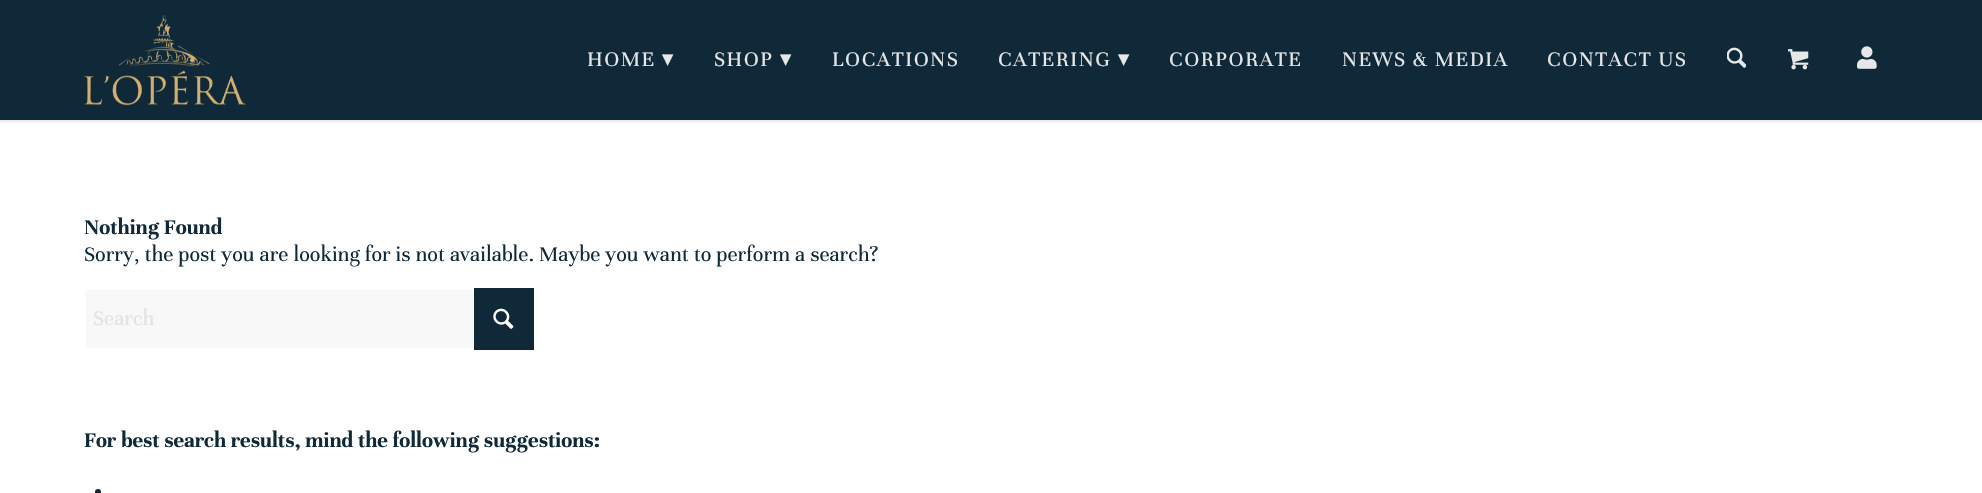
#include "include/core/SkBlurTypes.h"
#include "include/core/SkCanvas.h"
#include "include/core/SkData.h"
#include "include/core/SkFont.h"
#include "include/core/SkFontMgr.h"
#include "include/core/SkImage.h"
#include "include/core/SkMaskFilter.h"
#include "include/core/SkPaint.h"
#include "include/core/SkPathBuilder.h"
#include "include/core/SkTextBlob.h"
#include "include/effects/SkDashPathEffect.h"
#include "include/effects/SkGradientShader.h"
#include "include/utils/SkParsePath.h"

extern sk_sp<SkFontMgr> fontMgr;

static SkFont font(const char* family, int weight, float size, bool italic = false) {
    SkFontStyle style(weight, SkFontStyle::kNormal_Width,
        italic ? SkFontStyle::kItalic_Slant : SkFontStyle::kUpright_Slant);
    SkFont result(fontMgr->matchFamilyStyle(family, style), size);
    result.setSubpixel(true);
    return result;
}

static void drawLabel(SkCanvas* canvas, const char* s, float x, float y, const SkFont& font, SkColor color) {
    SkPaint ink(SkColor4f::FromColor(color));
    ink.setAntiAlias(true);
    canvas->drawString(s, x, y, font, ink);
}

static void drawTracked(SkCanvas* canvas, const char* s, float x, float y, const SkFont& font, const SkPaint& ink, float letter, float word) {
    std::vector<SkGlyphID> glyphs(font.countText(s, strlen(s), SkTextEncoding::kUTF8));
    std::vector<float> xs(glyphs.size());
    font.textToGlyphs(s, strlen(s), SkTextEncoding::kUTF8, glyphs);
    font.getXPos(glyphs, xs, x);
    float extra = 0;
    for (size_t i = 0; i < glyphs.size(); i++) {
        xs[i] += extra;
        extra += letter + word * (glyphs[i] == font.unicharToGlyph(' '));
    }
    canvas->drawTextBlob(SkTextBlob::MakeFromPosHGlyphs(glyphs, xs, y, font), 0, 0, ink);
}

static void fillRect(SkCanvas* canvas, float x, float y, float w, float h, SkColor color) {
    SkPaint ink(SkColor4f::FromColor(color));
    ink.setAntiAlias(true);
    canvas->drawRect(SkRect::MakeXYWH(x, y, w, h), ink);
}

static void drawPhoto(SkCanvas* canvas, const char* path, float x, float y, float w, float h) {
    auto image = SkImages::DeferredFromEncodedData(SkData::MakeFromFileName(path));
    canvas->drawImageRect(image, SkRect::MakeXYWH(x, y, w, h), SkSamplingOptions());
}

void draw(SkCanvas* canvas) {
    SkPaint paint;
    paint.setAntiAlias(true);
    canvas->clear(0xFF0F2938);
    fillRect(canvas, 0, 120, 1982, 373, 0xFFFFFFFF);
    canvas->save();
    canvas->clipRect(SkRect::MakeXYWH(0, 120, 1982, 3));
    paint.setColor(0x1A000000);
    paint.setMaskFilter(SkMaskFilter::MakeBlur(kNormal_SkBlurStyle, 1.5f));
    canvas->drawRect(SkRect::MakeXYWH(-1, -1, 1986, 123), paint);
    paint.setMaskFilter(nullptr);
    canvas->restore();
    drawPhoto(canvas, "assets/img1.png", 84, 15, 162, 91);
    SkFont font1 = font("Unna", 400, 22.5f);
    paint.setColor(0xFFE6E7E8);
    drawTracked(canvas, "HOME", 587, 66, font1, paint, 1.5f, 0);
    SkFont font2 = font("DejaVu Sans", 400, 22.5f);
    drawTracked(canvas, "▾", 662, 66, font2, paint, 1.5f, 0);
    drawTracked(canvas, "SHOP", 714, 66, font1, paint, 1.5f, 0);
    drawTracked(canvas, "▾", 780, 66, font2, paint, 1.5f, 0);
    drawTracked(canvas, "LOCATIONS", 832, 66, font1, paint, 1.5f, 0);
    drawTracked(canvas, "CATERING", 998, 66, font1, paint, 1.5f, 0);
    drawTracked(canvas, "▾", 1118, 66, font2, paint, 1.5f, 0);
    drawTracked(canvas, "CORPORATE", 1169, 66, font1, paint, 1.5f, 0);
    drawTracked(canvas, "NEWS & MEDIA", 1342, 66, font1, paint, 1.5f, 0);
    drawTracked(canvas, "CONTACT US", 1547, 66, font1, paint, 1.5f, 0);
    drawPhoto(canvas, "assets/img2.png", 1727, 47, 19, 21);
    drawPhoto(canvas, "assets/img3.png", 1788, 49, 21, 21);
    drawPhoto(canvas, "assets/img4.png", 1857, 46, 20, 23);
    SkFont font3 = font("Unna", 700, 22.5f);
    drawLabel(canvas, "Nothing Found", 84, 234, font3, 0xFF0F2938);
    drawLabel(canvas, "Sorry, the post you are looking for is not available. Maybe you want to perform a search?", 84, 261, font1, 0xFF0F2938);
    fillRect(canvas, 86, 290, 388, 58, 0xFFF8F8F8);
    drawLabel(canvas, "Search", 93, 325, font1, 0xFFE2E2E2);
    fillRect(canvas, 474, 288, 60, 62, 0xFF0F2938);
    drawPhoto(canvas, "assets/img5.png", 493, 308, 21, 21);
    drawLabel(canvas, "For best search results, mind the following suggestions:", 84, 447, font3, 0xFF0F2938);
    paint.setColor(0xFF0F2938);
    canvas->drawCircle(98, 492, 3, paint);
}
